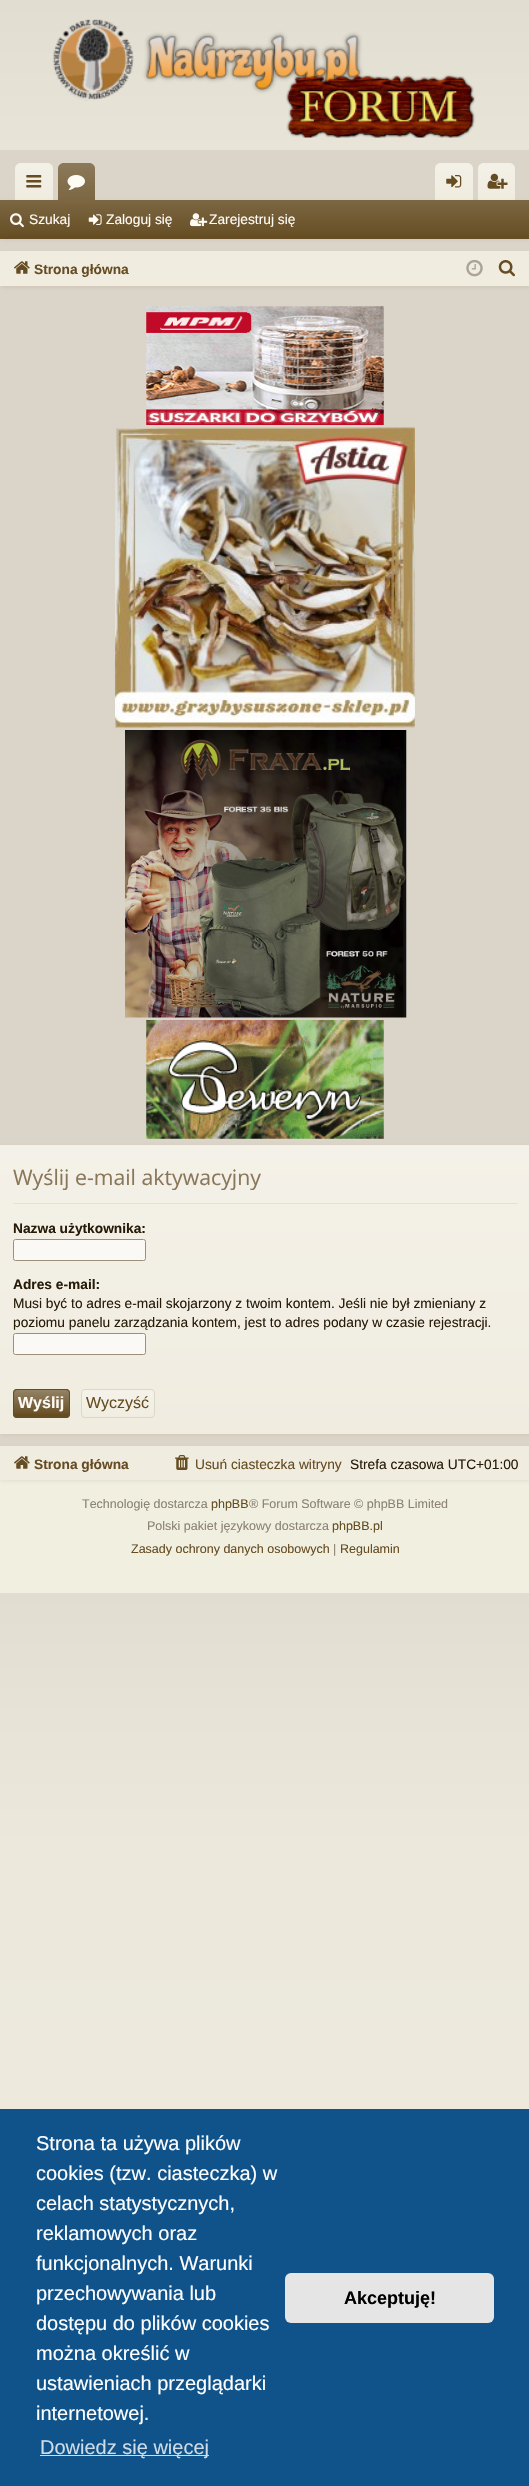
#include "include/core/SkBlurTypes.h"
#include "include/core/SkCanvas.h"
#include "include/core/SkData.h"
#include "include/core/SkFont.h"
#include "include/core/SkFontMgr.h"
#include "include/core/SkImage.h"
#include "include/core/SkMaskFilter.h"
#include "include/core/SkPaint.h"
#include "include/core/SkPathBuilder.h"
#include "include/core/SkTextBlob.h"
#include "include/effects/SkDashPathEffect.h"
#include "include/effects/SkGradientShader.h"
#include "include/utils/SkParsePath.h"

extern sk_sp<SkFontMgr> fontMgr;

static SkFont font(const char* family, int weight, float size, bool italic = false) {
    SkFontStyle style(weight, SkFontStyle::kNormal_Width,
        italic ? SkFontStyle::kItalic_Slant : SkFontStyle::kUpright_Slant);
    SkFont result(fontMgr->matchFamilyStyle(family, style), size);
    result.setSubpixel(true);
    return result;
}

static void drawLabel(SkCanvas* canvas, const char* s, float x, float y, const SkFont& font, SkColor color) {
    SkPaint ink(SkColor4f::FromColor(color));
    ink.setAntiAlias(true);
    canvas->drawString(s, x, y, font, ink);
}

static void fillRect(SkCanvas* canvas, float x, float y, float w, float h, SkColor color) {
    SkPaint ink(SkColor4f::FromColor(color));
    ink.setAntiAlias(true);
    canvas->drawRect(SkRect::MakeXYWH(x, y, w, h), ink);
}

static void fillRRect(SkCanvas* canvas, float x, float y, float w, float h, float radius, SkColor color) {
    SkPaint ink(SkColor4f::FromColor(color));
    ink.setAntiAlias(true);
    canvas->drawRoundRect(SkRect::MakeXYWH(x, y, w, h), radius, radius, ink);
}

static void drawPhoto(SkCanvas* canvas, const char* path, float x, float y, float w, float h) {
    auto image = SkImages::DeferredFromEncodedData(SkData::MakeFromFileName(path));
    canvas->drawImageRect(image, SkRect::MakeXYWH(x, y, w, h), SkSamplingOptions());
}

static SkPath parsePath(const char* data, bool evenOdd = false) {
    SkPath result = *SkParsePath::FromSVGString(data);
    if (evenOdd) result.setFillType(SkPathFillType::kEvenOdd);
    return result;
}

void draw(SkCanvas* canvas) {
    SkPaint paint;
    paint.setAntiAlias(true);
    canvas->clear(0xFFFFFFFF);
    {
        const SkColor colors[] = {0xFFE2DDD1, 0xFFECE9DC, 0xFFF0EEE0};
        const float stops[] = {0, 0.16f, 1};
        const SkPoint ends[] = {{265, 1593}, {265, 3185}};
        paint.setShader(SkGradientShader::MakeLinear(ends, colors, stops, 3, SkTileMode::kClamp));
        paint.setAlpha(255);
    }
    canvas->drawRect(SkRect::MakeXYWH(0, 1593, 529, 516), paint);
    {
        const SkColor colors[] = {0xFFE2DDD1, 0xFFECE9DC, 0xFFF0EFE0};
        const float stops[] = {0, 0.16f, 1};
        const SkPoint ends[] = {{265, 0}, {265, 1593}};
        paint.setShader(SkGradientShader::MakeLinear(ends, colors, stops, 3, SkTileMode::kClamp));
        paint.setAlpha(255);
    }
    canvas->drawRect(SkRect::MakeXYWH(0, 0, 529, 1593), paint);
    drawPhoto(canvas, "assets/img1.png", 52, 19, 424, 119);
    fillRect(canvas, 0, 150, 529, 1296, 0xFFDBD5C9);
    paint.setShader(nullptr);
    paint.setColor(0xFFF0ECE0);
    canvas->drawPath(parsePath("M21 163H47C50.5 163 53 165.5 53 169V200H15V169C15 165.5 17.5 163 21 163Z"), paint);
    {
        const SkColor colors[] = {0x40FFFFFF, 0x00FFFFFF};
        const float stops[] = {0, 1};
        const SkPoint ends[] = {{34, 163}, {34, 200}};
        paint.setShader(SkGradientShader::MakeLinear(ends, colors, stops, 2, SkTileMode::kClamp));
        paint.setAlpha(255);
    }
    canvas->drawPath(parsePath("M21 163H47C50.5 163 53 165.5 53 169V200H15V169C15 165.5 17.5 163 21 163Z"), paint);
    drawPhoto(canvas, "assets/img2.png", 26, 175, 16, 13);
    paint.setShader(nullptr);
    paint.setColor(0xFF654C22);
    canvas->drawPath(parsePath("M64 163H89C92.5 163 95 165.5 95 169V200H58V169C58 165.5 60.5 163 64 163Z"), paint);
    {
        const SkColor colors[] = {0x40FFFFFF, 0x26FFFFFF};
        const float stops[] = {0, 1};
        const SkPoint ends[] = {{76, 163}, {76, 200}};
        paint.setShader(SkGradientShader::MakeLinear(ends, colors, stops, 2, SkTileMode::kClamp));
        paint.setAlpha(255);
    }
    canvas->drawPath(parsePath("M64 163H89C92.5 163 95 165.5 95 169V200H58V169C58 165.5 60.5 163 64 163Z"), paint);
    drawPhoto(canvas, "assets/img3.png", 67, 175, 18, 15);
    paint.setShader(nullptr);
    paint.setColor(0xFFF0ECE0);
    canvas->drawPath(parsePath("M441 163H467C470.5 163 473 165.5 473 169V200H435V169C435 165.5 437.5 163 441 163Z"), paint);
    {
        const SkColor colors[] = {0x40FFFFFF, 0x00FFFFFF};
        const float stops[] = {0, 1};
        const SkPoint ends[] = {{454, 163}, {454, 200}};
        paint.setShader(SkGradientShader::MakeLinear(ends, colors, stops, 2, SkTileMode::kClamp));
        paint.setAlpha(255);
    }
    canvas->drawPath(parsePath("M441 163H467C470.5 163 473 165.5 473 169V200H435V169C435 165.5 437.5 163 441 163Z"), paint);
    paint.setShader(nullptr);
    paint.setColor(0xFFF0ECE0);
    canvas->drawPath(parsePath("M484 163H509C512.5 163 515 165.5 515 169V200H478V169C478 165.5 480.5 163 484 163Z"), paint);
    {
        const SkColor colors[] = {0x40FFFFFF, 0x00FFFFFF};
        const float stops[] = {0, 1};
        const SkPoint ends[] = {{496, 163}, {496, 200}};
        paint.setShader(SkGradientShader::MakeLinear(ends, colors, stops, 2, SkTileMode::kClamp));
        paint.setAlpha(255);
    }
    canvas->drawPath(parsePath("M484 163H509C512.5 163 515 165.5 515 169V200H478V169C478 165.5 480.5 163 484 163Z"), paint);
    paint.setShader(nullptr);
    paint.setColor(0x1A654C22);
    paint.setMaskFilter(SkMaskFilter::MakeBlur(kNormal_SkBlurStyle, 2));
    canvas->drawRect(SkRect::MakeXYWH(1, 201, 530, 39), paint);
    paint.setMaskFilter(nullptr);
    {
        const SkColor colors[] = {0xFF7C6743, 0xFF654C22};
        const float stops[] = {0, 1};
        const SkPoint ends[] = {{265, 200}, {265, 239}};
        paint.setShader(SkGradientShader::MakeLinear(ends, colors, stops, 2, SkTileMode::kClamp));
        paint.setAlpha(255);
    }
    canvas->drawRect(SkRect::MakeXYWH(0, 200, 529, 39), paint);
    paint.setShader(nullptr);
    paint.setColor(0xFF654C22);
    canvas->drawPath(parsePath("M60.5 199H92.5C94 199 95 200 95 201.5V202H58V201.5C58 200 59 199 60.5 199Z"), paint);
    paint.setColor(0x26FFFFFF);
    canvas->drawPath(parsePath("M60.5 199H92.5C94 199 95 200 95 201.5V202H58V201.5C58 200 59 199 60.5 199Z"), paint);
    drawPhoto(canvas, "assets/img4.png", 446, 175, 16, 13);
    drawPhoto(canvas, "assets/img5.png", 487, 173, 21, 16);
    drawPhoto(canvas, "assets/img6.png", 10, 213, 14, 15);
    SkFont font1 = font("Liberation Sans", 400, 13.75f);
    drawLabel(canvas, "Szukaj", 29, 224, font1, 0xFFFEFBF5);
    drawPhoto(canvas, "assets/img7.png", 88, 214, 14, 11);
    drawLabel(canvas, "Zaloguj się", 106, 224, font1, 0xFFFEFBF5);
    drawPhoto(canvas, "assets/img8.png", 190, 213, 18, 14);
    drawLabel(canvas, "Zarejestruj się", 209, 224, font1, 0xFFFEFBF5);
    paint.setColor(0x1A654C22);
    paint.setMaskFilter(SkMaskFilter::MakeBlur(kNormal_SkBlurStyle, 2));
    canvas->drawRect(SkRect::MakeXYWH(1, 253, 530, 35), paint);
    paint.setMaskFilter(nullptr);
    fillRect(canvas, 0, 251, 529, 35, 0xFFF0ECE0);
    drawPhoto(canvas, "assets/img9.png", 14, 261, 16, 13);
    SkFont font2 = font("Liberation Sans", 700, 13.75f);
    drawLabel(canvas, "Strona główna", 34, 274, font2, 0xFF654C22);
    drawPhoto(canvas, "assets/img10.png", 466, 259, 17, 18);
    drawPhoto(canvas, "assets/img11.png", 498, 260, 17, 17);
    drawPhoto(canvas, "assets/img12.png", 146, 306, 238, 119);
    drawPhoto(canvas, "assets/img13.png", 115, 427, 300, 301);
    drawPhoto(canvas, "assets/img14.png", 125, 730, 282, 288);
    drawPhoto(canvas, "assets/img15.png", 146, 1020, 238, 119);
    paint.setMaskFilter(SkMaskFilter::MakeBlur(kNormal_SkBlurStyle, 2));
    canvas->drawRect(SkRect::MakeXYWH(1, 1146, 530, 289), paint);
    paint.setMaskFilter(nullptr);
    {
        const SkColor colors[] = {0xFFF4F1E8, 0xFFF0ECE0};
        const float stops[] = {0, 1};
        const SkPoint ends[] = {{265, 1145}, {265, 1434}};
        paint.setShader(SkGradientShader::MakeLinear(ends, colors, stops, 2, SkTileMode::kClamp));
        paint.setAlpha(255);
    }
    canvas->drawRect(SkRect::MakeXYWH(0, 1145, 529, 289), paint);
    fillRect(canvas, 13, 1203, 505, 1, 0xFFE8E1CF);
    SkFont font3 = font("Open Sans", 400, 21.25f);
    drawLabel(canvas, "Wyślij e-mail aktywacyjny", 13, 1185, font3, 0xFF897759);
    drawLabel(canvas, "Nazwa użytkownika:", 13, 1233, font2, 0xFF271B08);
    paint.setShader(nullptr);
    paint.setColor(0xFFFBF9F6);
    canvas->drawRoundRect(SkRect::MakeXYWH(13.5f, 1239.5f, 132, 21), 2, 2, paint);
    paint.setStroke(true);
    paint.setStrokeWidth(1);
    paint.setColor(0xFF9D8F78);
    canvas->drawRoundRect(SkRect::MakeXYWH(13.5f, 1239.5f, 132, 21), 2, 2, paint);
    drawLabel(canvas, "Adres e-mail:", 13, 1289, font2, 0xFF271B08);
    drawLabel(canvas, "Musi być to adres e-mail skojarzony z twoim kontem. Jeśli nie był zmieniany z", 13, 1308, font1, 0xFF271B08);
    drawLabel(canvas, "poziomu panelu zarządzania kontem, jest to adres podany w czasie rejestracji.", 13, 1327, font1, 0xFF271B08);
    paint.setStroke(false);
    paint.setColor(0xFFFBF9F6);
    canvas->drawRoundRect(SkRect::MakeXYWH(13.5f, 1333.5f, 132, 21), 2, 2, paint);
    paint.setStroke(true);
    paint.setColor(0xFF9D8F78);
    canvas->drawRoundRect(SkRect::MakeXYWH(13.5f, 1333.5f, 132, 21), 2, 2, paint);
    fillRRect(canvas, 13, 1389, 57, 29, 4, 0xFF654C22);
    canvas->save();
    canvas->clipPath(parsePath("M17 1389H66C68 1389 70 1391 70 1393V1414C70 1416 68 1418 66 1418H17C15 1418 13 1416 13 1414V1393C13 1391 15 1389 17 1389Z"), true);
    paint.setStroke(false);
    {
        const SkColor colors[] = {0x4DFFFFFF, 0x00FFFFFF};
        const float stops[] = {0, 1};
        const SkPoint ends[] = {{41, 1390}, {41, 1416}};
        paint.setShader(SkGradientShader::MakeLinear(ends, colors, stops, 2, SkTileMode::kClamp));
        paint.setAlpha(255);
    }
    canvas->drawRect(SkRect::MakeXYWH(13, 1390, 57, 24), paint);
    canvas->restore();
    paint.setStroke(true);
    paint.setShader(nullptr);
    paint.setColor(0xFF654C22);
    canvas->drawRoundRect(SkRect::MakeXYWH(13.5f, 1389.5f, 56, 28), 3.5f, 3.5f, paint);
    SkFont font4 = font("Liberation Sans", 700, 16);
    drawLabel(canvas, "Wyślij", 18, 1408, font4, 0xFFFEFBF5);
    canvas->save();
    canvas->clipPath(parsePath("M85 1389H151C153 1389 155 1391 155 1393V1414C155 1416 153 1418 151 1418H85C83 1418 81 1416 81 1414V1393C81 1391 83 1389 85 1389Z"), true);
    paint.setStroke(false);
    {
        const SkColor colors[] = {0xFFF5F2EA, 0xFFF0EDE1};
        const float stops[] = {0, 1};
        const SkPoint ends[] = {{118, 1390}, {118, 1416}};
        paint.setShader(SkGradientShader::MakeLinear(ends, colors, stops, 2, SkTileMode::kClamp));
        paint.setAlpha(255);
    }
    canvas->drawRect(SkRect::MakeXYWH(81, 1390, 74, 26), paint);
    canvas->restore();
    paint.setStroke(true);
    paint.setShader(nullptr);
    paint.setColor(0xFFDDD7C8);
    canvas->drawRoundRect(SkRect::MakeXYWH(81.5f, 1389.5f, 73, 28), 3.5f, 3.5f, paint);
    SkFont font5 = font("Liberation Sans", 400, 16);
    drawLabel(canvas, "Wyczyść", 86, 1408, font5, 0xFF654C22);
    paint.setStroke(false);
    paint.setColor(0x1A654C22);
    paint.setMaskFilter(SkMaskFilter::MakeBlur(kNormal_SkBlurStyle, 2));
    canvas->drawRect(SkRect::MakeXYWH(1, 1448, 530, 33), paint);
    paint.setMaskFilter(nullptr);
    fillRect(canvas, 0, 1446, 529, 34, 0xFFF0ECE0);
    drawPhoto(canvas, "assets/img9.png", 14, 1456, 16, 13);
    drawLabel(canvas, "Strona główna", 34, 1469, font2, 0xFF654C22);
    drawPhoto(canvas, "assets/img16.png", 175, 1455, 14, 15);
    drawLabel(canvas, "Usuń ciasteczka witryny", 195, 1469, font1, 0xFF654C22);
    drawLabel(canvas, "Strefa czasowa UTC+01:00", 350, 1469, font1, 0xFF271B08);
    SkFont font6 = font("Liberation Sans", 400, 12.5f);
    drawLabel(canvas, "Technologię dostarcza", 82, 1508, font6, 0xFF8B8374);
    drawLabel(canvas, "phpBB", 211, 1508, font6, 0xFF654C22);
    drawLabel(canvas, "® Forum Software © phpBB Limited", 249, 1508, font6, 0xFF8B8374);
    drawLabel(canvas, "Polski pakiet językowy dostarcza", 147, 1530, font6, 0xFF8B8374);
    drawLabel(canvas, "phpBB.pl", 332, 1530, font6, 0xFF654C22);
    drawLabel(canvas, "Zasady ochrony danych osobowych", 131, 1553, font6, 0xFF654C22);
    drawLabel(canvas, "|", 333, 1553, font6, 0xFF8B8374);
    drawLabel(canvas, "Regulamin", 340, 1553, font6, 0xFF654C22);
    fillRect(canvas, 0, 2109, 529, 377, 0xFF0F538A);
    SkFont font7 = font("Liberation Sans", 400, 20);
    drawLabel(canvas, "Strona ta używa plików", 36, 2150, font7, 0xFFFFFFFF);
    drawLabel(canvas, "cookies (tzw. ciasteczka) w", 36, 2180, font7, 0xFFFFFFFF);
    drawLabel(canvas, "celach statystycznych,", 36, 2210, font7, 0xFFFFFFFF);
    drawLabel(canvas, "reklamowych oraz", 36, 2240, font7, 0xFFFFFFFF);
    drawLabel(canvas, "funkcjonalnych. Warunki", 36, 2270, font7, 0xFFFFFFFF);
    drawLabel(canvas, "przechowywania lub", 36, 2300, font7, 0xFFFFFFFF);
    drawLabel(canvas, "dostępu do plików cookies", 36, 2330, font7, 0xFFFFFFFF);
    drawLabel(canvas, "można określić w", 36, 2360, font7, 0xFFFFFFFF);
    drawLabel(canvas, "ustawieniach przeglądarki", 36, 2390, font7, 0xFFFFFFFF);
    drawLabel(canvas, "internetowej.", 36, 2420, font7, 0xFFFFFFFF);
    fillRect(canvas, 40, 2455, 169, 1, 0xFFCFDDE8);
    drawLabel(canvas, "Dowiedz się więcej", 40, 2454, font7, 0xFFCFDDE8);
    fillRRect(canvas, 285, 2273, 209, 50, 6, 0xFFE5E5E5);
    SkFont font8 = font("Liberation Sans", 700, 18);
    drawLabel(canvas, "Akceptuję!", 344, 2304, font8, 0xFF000000);
}
